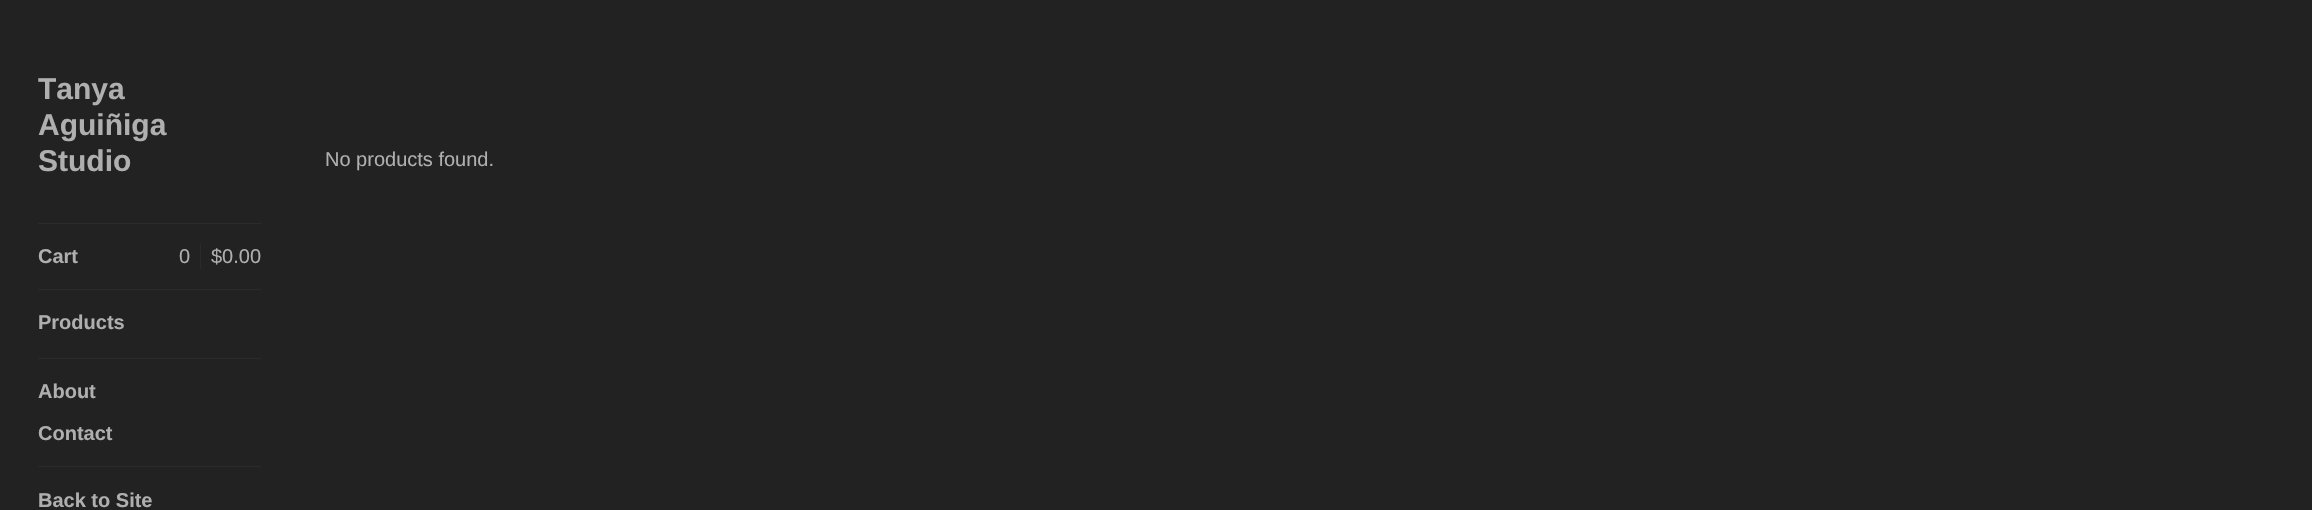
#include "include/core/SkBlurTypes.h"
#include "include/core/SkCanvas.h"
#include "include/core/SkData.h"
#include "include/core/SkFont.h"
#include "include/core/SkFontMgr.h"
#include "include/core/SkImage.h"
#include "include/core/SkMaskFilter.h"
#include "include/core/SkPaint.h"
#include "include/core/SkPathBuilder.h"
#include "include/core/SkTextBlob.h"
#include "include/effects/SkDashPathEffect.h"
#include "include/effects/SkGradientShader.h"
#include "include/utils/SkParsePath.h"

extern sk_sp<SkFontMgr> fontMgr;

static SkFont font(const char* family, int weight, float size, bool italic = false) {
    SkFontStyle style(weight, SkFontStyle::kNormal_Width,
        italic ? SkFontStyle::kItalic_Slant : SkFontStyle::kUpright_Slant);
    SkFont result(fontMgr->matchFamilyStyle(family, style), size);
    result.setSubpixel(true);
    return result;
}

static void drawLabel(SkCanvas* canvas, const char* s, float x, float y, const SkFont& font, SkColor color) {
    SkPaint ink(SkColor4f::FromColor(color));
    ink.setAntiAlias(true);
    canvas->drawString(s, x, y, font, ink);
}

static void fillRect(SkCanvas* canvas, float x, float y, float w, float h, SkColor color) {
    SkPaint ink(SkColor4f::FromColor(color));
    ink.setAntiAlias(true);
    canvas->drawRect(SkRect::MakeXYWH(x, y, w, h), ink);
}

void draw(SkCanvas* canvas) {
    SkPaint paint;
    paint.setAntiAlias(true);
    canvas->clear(0xFF222222);
    canvas->save();
    canvas->clipRect(SkRect::MakeXYWH(38, 71, 187, 108));
    SkFont font1 = font("Liberation Sans", 700, 30);
    drawLabel(canvas, "Tanya", 38, 99, font1, 0xFFAFAFAF);
    canvas->restore();
    drawLabel(canvas, "Aguiñiga", 38, 135, font1, 0xFFAFAFAF);
    drawLabel(canvas, "Studio", 38, 171, font1, 0xFFAFAFAF);
    fillRect(canvas, 38, 223, 223, 1, 0xFF2B2B2B);
    SkFont font2 = font("Liberation Sans", 700, 20);
    drawLabel(canvas, "Cart", 38, 263, font2, 0xFFAFAFAF);
    SkFont font3 = font("Liberation Sans", 400, 20);
    drawLabel(canvas, "0", 179, 263, font3, 0xFFAFAFAF);
    fillRect(canvas, 200, 244, 1, 25, 0xFF2B2B2B);
    drawLabel(canvas, "$0.00", 211, 263, font3, 0xFFAFAFAF);
    fillRect(canvas, 38, 289, 223, 1, 0xFF2B2B2B);
    drawLabel(canvas, "Products", 38, 329, font2, 0xFFAFAFAF);
    fillRect(canvas, 38, 358, 223, 1, 0xFF2B2B2B);
    drawLabel(canvas, "About", 38, 398, font2, 0xFFAFAFAF);
    drawLabel(canvas, "Contact", 38, 440, font2, 0xFFAFAFAF);
    fillRect(canvas, 38, 466, 223, 1, 0xFF2B2B2B);
    drawLabel(canvas, "Back to Site", 38, 507, font2, 0xFFAFAFAF);
    drawLabel(canvas, "No products found.", 325, 166, font3, 0xFFAFAFAF);
}
